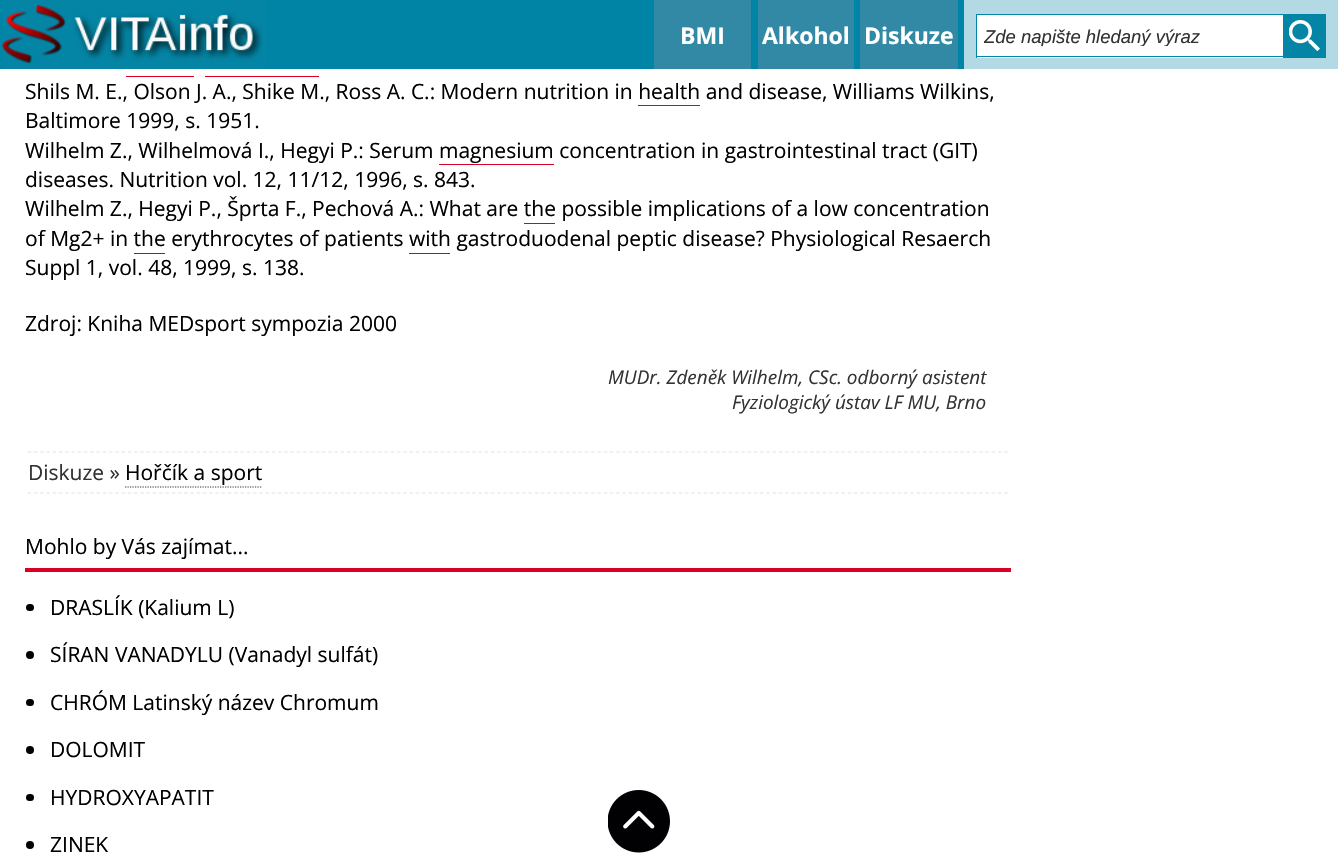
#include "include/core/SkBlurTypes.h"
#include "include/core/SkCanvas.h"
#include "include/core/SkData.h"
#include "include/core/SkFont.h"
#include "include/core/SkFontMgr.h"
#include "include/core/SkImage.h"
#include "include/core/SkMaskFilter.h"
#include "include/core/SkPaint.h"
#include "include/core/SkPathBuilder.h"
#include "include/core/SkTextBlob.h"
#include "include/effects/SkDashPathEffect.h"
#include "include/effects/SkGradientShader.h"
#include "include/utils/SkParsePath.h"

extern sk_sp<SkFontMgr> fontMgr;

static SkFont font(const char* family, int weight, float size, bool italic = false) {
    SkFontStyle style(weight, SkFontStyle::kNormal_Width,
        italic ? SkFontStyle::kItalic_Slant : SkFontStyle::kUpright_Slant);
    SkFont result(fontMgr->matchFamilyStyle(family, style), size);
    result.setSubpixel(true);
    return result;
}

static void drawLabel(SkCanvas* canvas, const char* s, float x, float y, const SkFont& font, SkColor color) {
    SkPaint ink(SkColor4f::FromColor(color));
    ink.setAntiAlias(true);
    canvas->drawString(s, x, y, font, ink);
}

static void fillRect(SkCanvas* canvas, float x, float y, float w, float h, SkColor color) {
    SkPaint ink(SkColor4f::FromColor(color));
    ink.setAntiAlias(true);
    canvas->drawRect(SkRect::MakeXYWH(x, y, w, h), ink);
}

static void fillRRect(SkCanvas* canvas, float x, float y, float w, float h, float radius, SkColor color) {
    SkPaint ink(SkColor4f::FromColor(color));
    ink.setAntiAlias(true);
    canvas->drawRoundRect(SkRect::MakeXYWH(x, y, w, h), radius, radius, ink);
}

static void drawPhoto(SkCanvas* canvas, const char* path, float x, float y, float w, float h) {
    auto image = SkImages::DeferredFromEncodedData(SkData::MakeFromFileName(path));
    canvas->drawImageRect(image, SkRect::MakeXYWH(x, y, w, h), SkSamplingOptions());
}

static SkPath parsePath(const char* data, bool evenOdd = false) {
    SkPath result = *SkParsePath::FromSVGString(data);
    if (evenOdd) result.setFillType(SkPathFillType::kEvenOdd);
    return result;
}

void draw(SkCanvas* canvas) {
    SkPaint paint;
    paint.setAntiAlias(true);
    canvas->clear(0xFFFFFFFF);
    fillRect(canvas, 0, 0, 964, 69, 0xFF0084A5);
    fillRect(canvas, 3, 0, 262, 69, 0xFF0485A5);
    drawPhoto(canvas, "assets/img1.png", 2, 4, 261, 60);
    fillRect(canvas, 654, 0, 97, 69, 0xFF3189A6);
    SkFont font1 = font("Open Sans", 700, 23);
    drawLabel(canvas, "BMI", 680, 44, font1, 0xFFFFFFFF);
    fillRect(canvas, 758, 0, 96, 69, 0xFF3189A6);
    drawLabel(canvas, "Alkohol", 762, 44, font1, 0xFFFFFFFF);
    fillRect(canvas, 860, 0, 98, 69, 0xFF3189A6);
    drawLabel(canvas, "Diskuze", 864, 44, font1, 0xFFFFFFFF);
    fillRect(canvas, 964, 0, 374, 69, 0xFFB3DAE4);
    fillRect(canvas, 977, 15, 306, 43, 0xFFFFFFFF);
    fillRect(canvas, 976, 14, 307, 1, 0xFF0485A5);
    fillRect(canvas, 976, 56, 307, 1, 0xFF0485A5);
    fillRect(canvas, 976, 14, 1, 44, 0xFF0485A5);
    canvas->save();
    canvas->clipRect(SkRect::MakeXYWH(984, 26, 292, 20));
    SkFont font2 = font("Liberation Sans", 400, 18.5f, true);
    drawLabel(canvas, "Zde napište hledaný výraz", 984, 43, font2, 0xFF333333);
    canvas->restore();
    fillRect(canvas, 1283, 14, 43, 44, 0xFF0485A5);
    drawPhoto(canvas, "assets/img2.png", 1289, 20, 31, 31);
    fillRect(canvas, 126, 76, 68, 1, 0xFFD80027);
    fillRect(canvas, 205, 76, 114, 1, 0xFFD80027);
    SkFont font3 = font("Open Sans", 400, 21);
    drawLabel(canvas, "Shils M. E., Olson J. A., Shike M., Ross A. C.: Modern nutrition in health and disease, Williams Wilkins,", 25, 99, font3, 0xFF000000);
    fillRect(canvas, 638, 105, 62, 1, 0xFFD80027);
    drawLabel(canvas, "Baltimore 1999, s. 1951.", 25, 128, font3, 0xFF000000);
    drawLabel(canvas, "Wilhelm Z., Wilhelmová I., Hegyi P.: Serum magnesium concentration in gastrointestinal tract (GIT)", 25, 158, font3, 0xFF000000);
    fillRect(canvas, 439, 164, 115, 1, 0xFFD80027);
    drawLabel(canvas, "diseases. Nutrition vol. 12, 11/12, 1996, s. 843.", 25, 187, font3, 0xFF000000);
    drawLabel(canvas, "Wilhelm Z., Hegyi P., Šprta F., Pechová A.: What are the possible implications of a low concentration", 25, 216, font3, 0xFF000000);
    fillRect(canvas, 524, 223, 31, 1, 0xFFD80027);
    drawLabel(canvas, "of Mg2+ in the erythrocytes of patients with gastroduodenal peptic disease? Physiological Resaerch", 25, 246, font3, 0xFF000000);
    fillRect(canvas, 134, 253, 31, 1, 0xFFD80027);
    fillRect(canvas, 409, 253, 41, 1, 0xFFD80027);
    drawLabel(canvas, "Suppl 1, vol. 48, 1999, s. 138.", 25, 275, font3, 0xFF000000);
    drawLabel(canvas, "Zdroj: Kniha MEDsport sympozia 2000", 25, 331, font3, 0xFF000000);
    SkFont font4 = font("Open Sans", 400, 18.9f, true);
    drawLabel(canvas, "MUDr. Zdeněk Wilhelm, CSc. odborný asistent", 608, 384, font4, 0xFF333333);
    drawLabel(canvas, "Fyziologický ústav LF MU, Brno", 732, 409, font4, 0xFF333333);
    paint.setStroke(true);
    paint.setStrokeWidth(1.2f);
    paint.setColor(0xFFE4E4E4);
    paint.setPathEffect(SkDashPathEffect::Make({{3.75f, 2.51f}}, 0));
    canvas->drawPath(parsePath("M27.5 452H1009"), paint);
    paint.setPathEffect(nullptr);
    paint.setPathEffect(SkDashPathEffect::Make({{3.75f, 2.51f}}, 0));
    canvas->drawPath(parsePath("M27.5 493H1009"), paint);
    paint.setPathEffect(nullptr);
    drawLabel(canvas, "Diskuze »", 28, 480, font3, 0xFF333333);
    drawLabel(canvas, "Hořčík a sport", 125, 480, font3, 0xFF000000);
    paint.setColor(0xFF333333);
    paint.setPathEffect(SkDashPathEffect::Make({{1.25f, 1.25f}}, 0));
    canvas->drawPath(parsePath("M125 487H262.5"), paint);
    paint.setPathEffect(nullptr);
    fillRect(canvas, 25, 568, 986, 4, 0xFFD80027);
    drawLabel(canvas, "Mohlo by Vás zajímat...", 25, 554, font3, 0xFF000000);
    fillRRect(canvas, 26, 604, 8, 7, 3.5f, 0xFF000000);
    drawLabel(canvas, "DRASLÍK (Kalium L)", 50, 615, font3, 0xFF000000);
    paint.setStroke(false);
    paint.setColor(0xFF000000);
    canvas->drawCircle(30, 655, 4, paint);
    drawLabel(canvas, "SÍRAN VANADYLU (Vanadyl sulfát)", 50, 662, font3, 0xFF000000);
    fillRRect(canvas, 26, 699, 8, 7, 3.5f, 0xFF000000);
    drawLabel(canvas, "CHRÓM Latinský název Chromum", 50, 710, font3, 0xFF000000);
    canvas->drawCircle(30, 750, 4, paint);
    drawLabel(canvas, "DOLOMIT", 50, 757, font3, 0xFF000000);
    fillRRect(canvas, 26, 794, 8, 7, 3.5f, 0xFF000000);
    drawLabel(canvas, "HYDROXYAPATIT", 50, 805, font3, 0xFF000000);
    canvas->drawCircle(30, 845, 4, paint);
    drawLabel(canvas, "ZINEK", 50, 852, font3, 0xFF000000);
    drawPhoto(canvas, "assets/img3.png", 608, 790, 62, 63);
}
